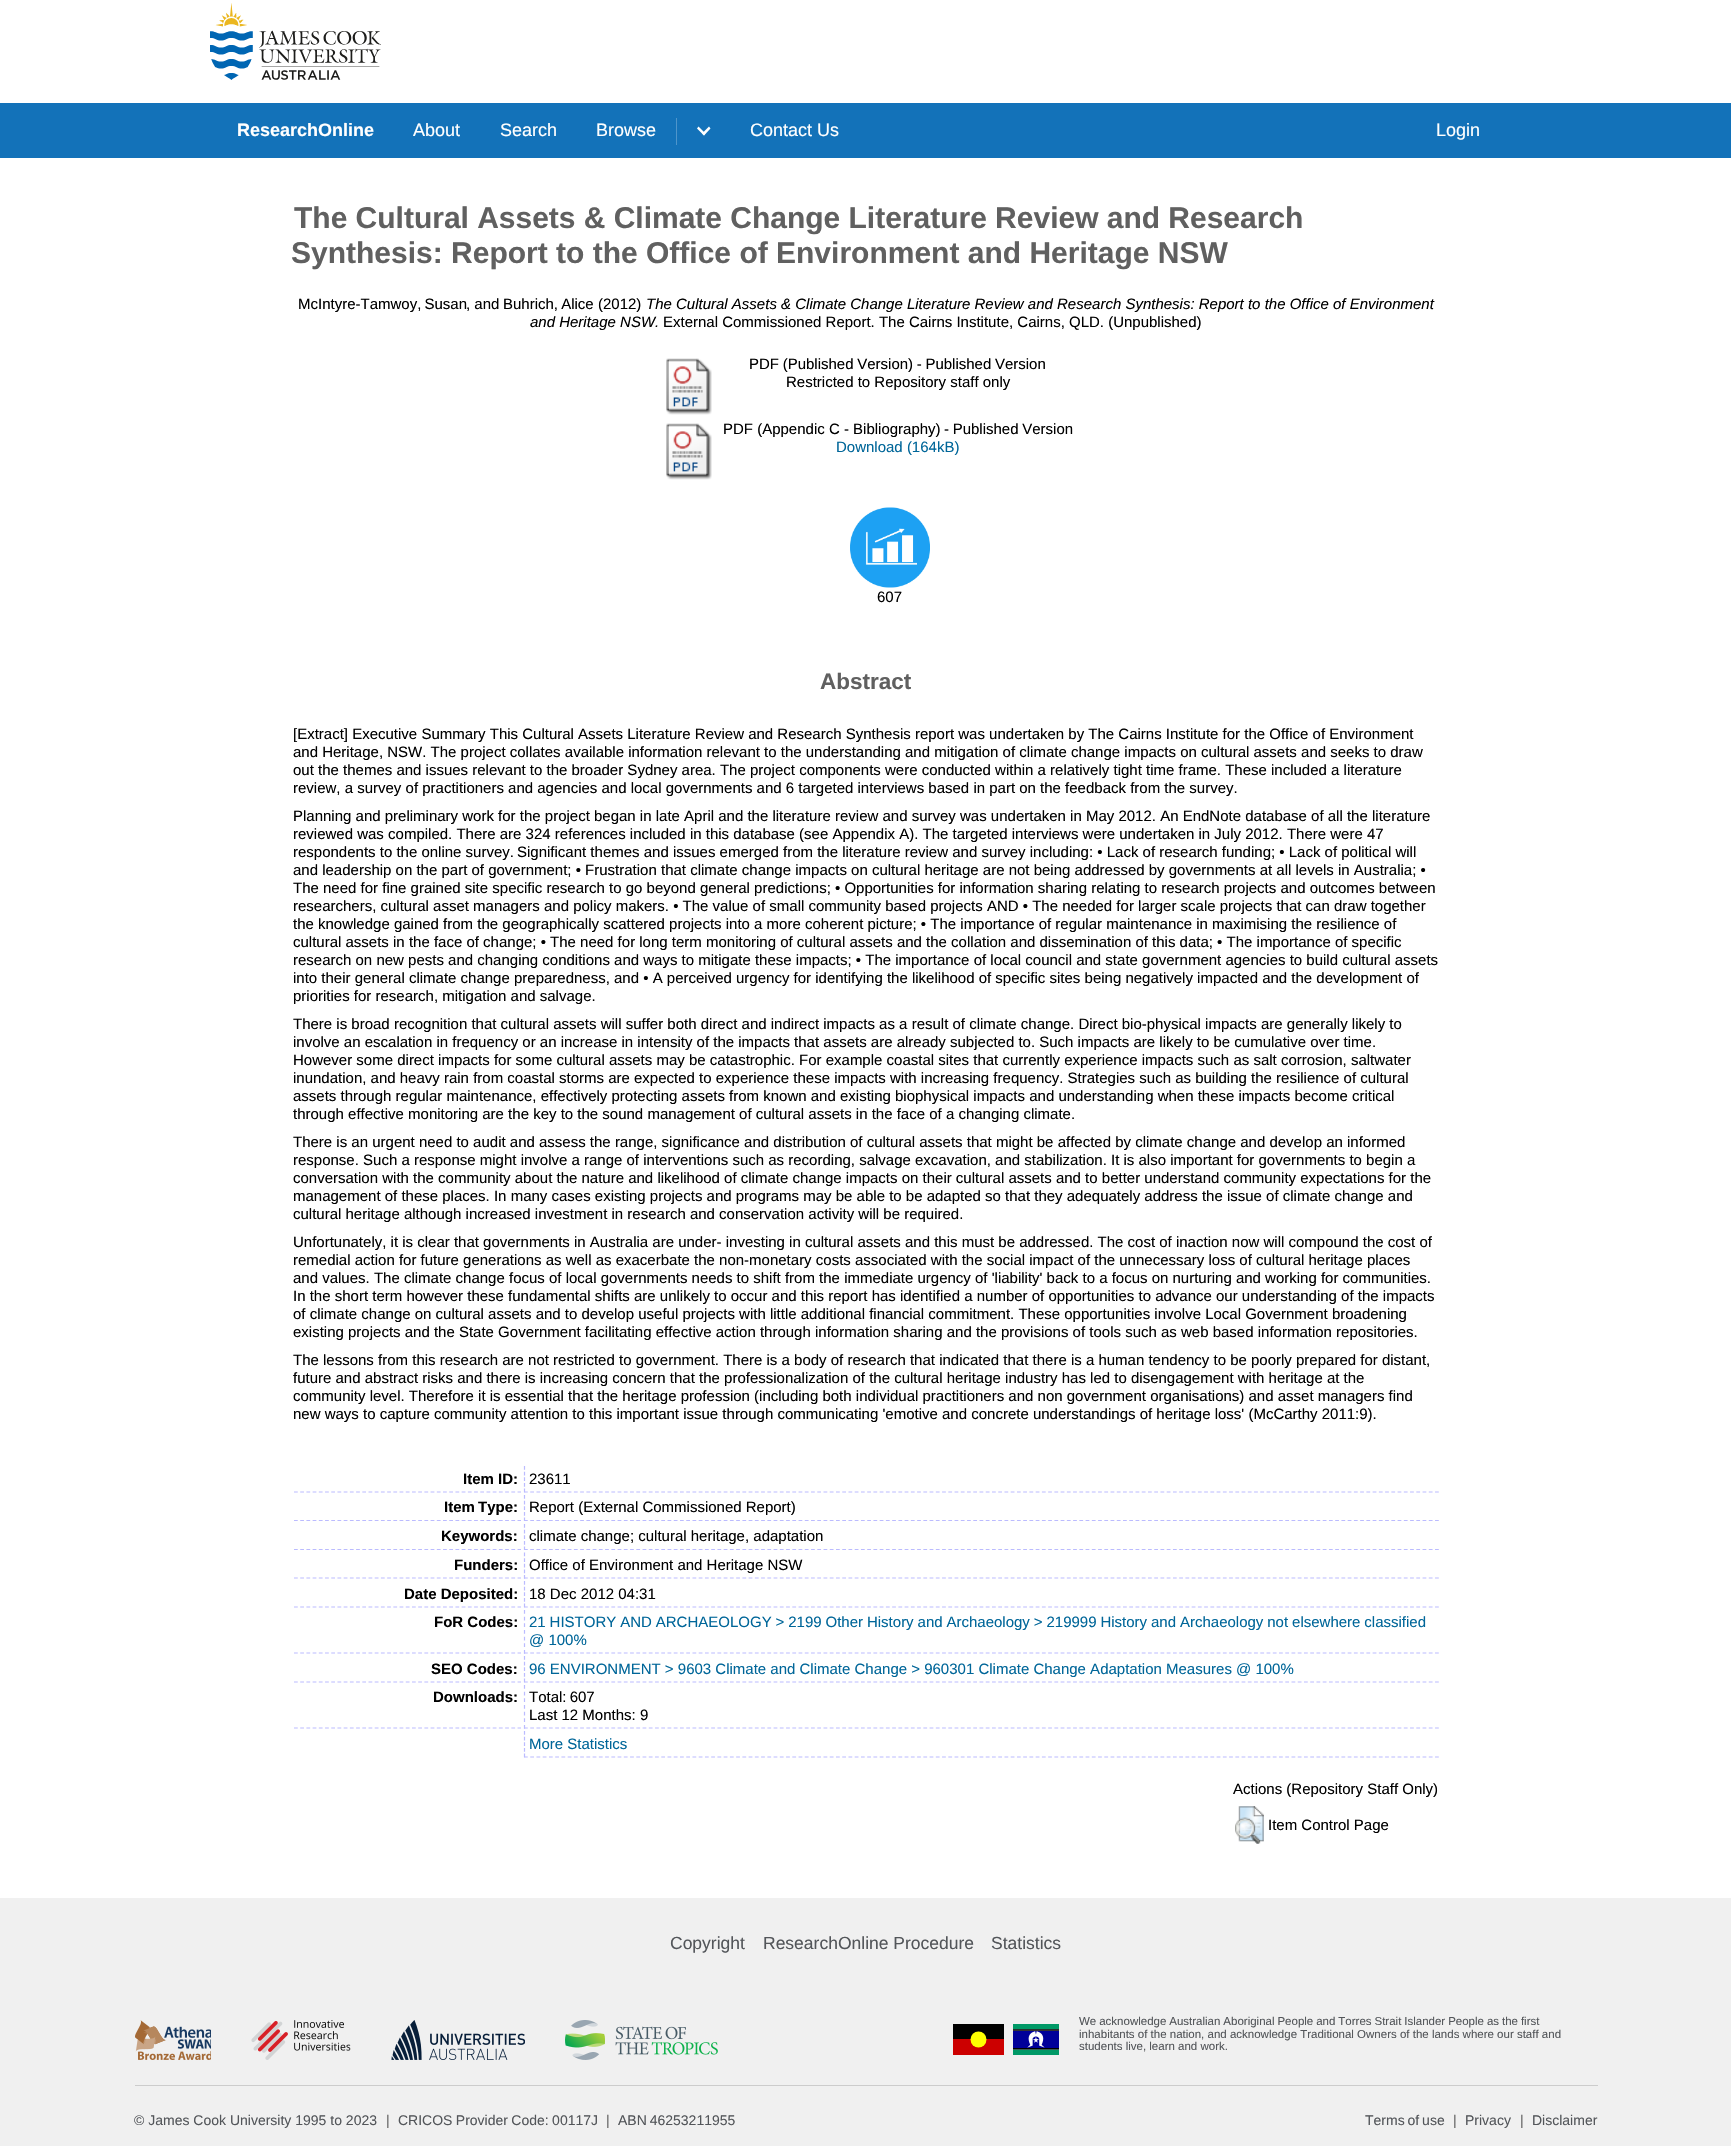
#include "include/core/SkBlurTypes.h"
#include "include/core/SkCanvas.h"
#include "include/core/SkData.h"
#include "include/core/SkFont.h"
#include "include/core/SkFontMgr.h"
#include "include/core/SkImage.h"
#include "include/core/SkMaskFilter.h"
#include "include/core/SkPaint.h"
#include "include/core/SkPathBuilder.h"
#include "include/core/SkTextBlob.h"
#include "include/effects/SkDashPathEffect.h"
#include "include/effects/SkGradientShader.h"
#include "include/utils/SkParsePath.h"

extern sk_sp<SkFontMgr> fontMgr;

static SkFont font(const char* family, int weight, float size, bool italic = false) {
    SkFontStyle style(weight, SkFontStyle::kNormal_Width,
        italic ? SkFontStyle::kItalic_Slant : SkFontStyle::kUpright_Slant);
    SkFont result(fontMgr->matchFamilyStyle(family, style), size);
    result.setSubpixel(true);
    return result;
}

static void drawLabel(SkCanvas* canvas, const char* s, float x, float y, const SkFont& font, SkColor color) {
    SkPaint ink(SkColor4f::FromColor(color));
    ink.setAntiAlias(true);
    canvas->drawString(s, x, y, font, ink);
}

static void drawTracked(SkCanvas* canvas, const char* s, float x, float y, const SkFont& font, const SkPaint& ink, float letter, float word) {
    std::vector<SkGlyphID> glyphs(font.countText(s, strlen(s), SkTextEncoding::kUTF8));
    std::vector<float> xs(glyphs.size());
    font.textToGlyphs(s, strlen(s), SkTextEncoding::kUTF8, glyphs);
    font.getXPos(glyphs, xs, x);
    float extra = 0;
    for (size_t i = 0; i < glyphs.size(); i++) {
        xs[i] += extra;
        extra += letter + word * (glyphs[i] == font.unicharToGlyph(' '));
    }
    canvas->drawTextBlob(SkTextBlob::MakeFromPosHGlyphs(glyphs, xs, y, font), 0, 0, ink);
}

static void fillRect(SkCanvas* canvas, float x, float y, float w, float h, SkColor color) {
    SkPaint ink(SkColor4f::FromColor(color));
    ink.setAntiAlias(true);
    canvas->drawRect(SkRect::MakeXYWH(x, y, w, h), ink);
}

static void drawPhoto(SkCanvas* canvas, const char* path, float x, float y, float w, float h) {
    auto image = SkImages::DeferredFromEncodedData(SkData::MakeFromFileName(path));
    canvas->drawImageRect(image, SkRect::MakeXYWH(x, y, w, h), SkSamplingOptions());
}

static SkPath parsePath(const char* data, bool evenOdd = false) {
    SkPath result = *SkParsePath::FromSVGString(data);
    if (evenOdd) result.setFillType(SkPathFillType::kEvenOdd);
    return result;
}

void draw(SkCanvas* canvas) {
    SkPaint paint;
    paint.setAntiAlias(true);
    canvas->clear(0xFFFFFFFF);
    drawPhoto(canvas, "assets/img1.png", 210, 3, 171, 77);
    fillRect(canvas, 0, 103, 1731, 55, 0xFF1372B9);
    SkFont font1 = font("Liberation Sans", 700, 18);
    drawLabel(canvas, "ResearchOnline", 237, 136, font1, 0xFFFFFFFF);
    SkFont font2 = font("Liberation Sans", 400, 18);
    drawLabel(canvas, "About", 413, 136, font2, 0xFFFFFFFF);
    drawLabel(canvas, "Search", 500, 136, font2, 0xFFFFFFFF);
    drawLabel(canvas, "Browse", 596, 136, font2, 0xFFFFFFFF);
    fillRect(canvas, 676, 118, 1, 27, 0xFF4E95CB);
    paint.setColor(0xFFFFFFFF);
    canvas->drawPath(parsePath("M710.5 128.5L704 135.5L702 133.5L709 126.5Z"), paint);
    canvas->drawPath(parsePath("M705.5 133.5L704 135.5L697 128.5L698.5 126.5Z"), paint);
    drawLabel(canvas, "Contact Us", 750, 136, font2, 0xFFFFFFFF);
    drawLabel(canvas, "Login", 1436, 136, font2, 0xFFFFFFFF);
    SkFont font3 = font("Liberation Sans", 700, 30);
    paint.setColor(0xFF606060);
    drawTracked(canvas, "The Cultural Assets & Climate Change Literature Review and Research", 294, 228, font3, paint, 0, -0.1f);
    drawLabel(canvas, "Synthesis: Report to the Office of Environment and Heritage NSW", 291, 263, font3, 0xFF606060);
    SkFont font4 = font("Liberation Sans", 400, 15);
    paint.setColor(0xFF000000);
    drawTracked(canvas, "McIntyre-Tamwoy, Susan", 298, 309, font4, paint, 0, -1);
    drawLabel(canvas, ", and", 466, 309, font4, 0xFF000000);
    drawTracked(canvas, "Buhrich, Alice", 503, 309, font4, paint, 0, -1);
    drawLabel(canvas, "(2012)", 598, 309, font4, 0xFF000000);
    SkFont font5 = font("Liberation Sans", 400, 15, true);
    drawLabel(canvas, "The Cultural Assets & Climate Change Literature Review and Research Synthesis: Report to the Office of Environment", 646, 309, font5, 0xFF000000);
    drawLabel(canvas, "and Heritage NSW.", 530, 327, font5, 0xFF000000);
    drawLabel(canvas, "External Commissioned Report. The Cairns Institute, Cairns, QLD. (Unpublished)", 663, 327, font4, 0xFF000000);
    drawPhoto(canvas, "assets/img2.png", 666, 358, 46, 57);
    drawTracked(canvas, "PDF (Published Version) - Published Version", 749, 369, font4, paint, 0, -0.5f);
    drawLabel(canvas, "Restricted to Repository staff only", 786, 387, font4, 0xFF000000);
    drawPhoto(canvas, "assets/img2.png", 666, 423, 46, 57);
    drawLabel(canvas, "PDF (Appendic C - Bibliography)", 723, 434, font4, 0xFF000000);
    drawTracked(canvas, "- Published Version", 944, 434, font4, paint, 0, -0.5f);
    drawLabel(canvas, "Download (164kB)", 836, 452, font4, 0xFF006699);
    drawPhoto(canvas, "assets/img3.png", 850, 507, 80, 81);
    drawLabel(canvas, "607", 877, 602, font4, 0xFF000000);
    SkFont font6 = font("Liberation Sans", 700, 22.5f);
    drawLabel(canvas, "Abstract", 820, 689, font6, 0xFF606060);
    drawLabel(canvas, "[Extract] Executive Summary This Cultural Assets Literature Review and Research Synthesis report was undertaken by The Cairns Institute for the Office of Environment", 293, 739, font4, 0xFF000000);
    drawLabel(canvas, "and Heritage, NSW. The project collates available information relevant to the understanding and mitigation of climate change impacts on cultural assets and seeks to draw", 293, 757, font4, 0xFF000000);
    drawLabel(canvas, "out the themes and issues relevant to the broader Sydney area. The project components were conducted within a relatively tight time frame. These included a literature", 293, 775, font4, 0xFF000000);
    drawLabel(canvas, "review, a survey of practitioners and agencies and local governments and 6 targeted interviews based in part on the feedback from the survey.", 293, 793, font4, 0xFF000000);
    drawLabel(canvas, "Planning and preliminary work for the project began in late April and the literature review and survey was undertaken in May 2012. An EndNote database of all the literature", 293, 821, font4, 0xFF000000);
    drawLabel(canvas, "reviewed was compiled. There are 324 references included in this database (see Appendix A). The targeted interviews were undertaken in July 2012. There were 47", 293, 839, font4, 0xFF000000);
    drawLabel(canvas, "respondents to the online survey.", 293, 857, font4, 0xFF000000);
    drawLabel(canvas, "Significant themes and issues emerged from the literature review and survey including: • Lack of research funding; • Lack of political will", 517, 857, font4, 0xFF000000);
    drawLabel(canvas, "and leadership on the part of government; • Frustration that climate change impacts on cultural heritage are not being addressed by governments at all levels in Australia; •", 293, 875, font4, 0xFF000000);
    drawLabel(canvas, "The need for fine grained site specific research to go beyond general predictions; • Opportunities for information sharing relating to research projects and outcomes between", 293, 893, font4, 0xFF000000);
    drawLabel(canvas, "researchers, cultural asset managers and policy makers. • The value of small community based projects AND • The needed for larger scale projects that can draw together", 293, 911, font4, 0xFF000000);
    drawLabel(canvas, "the knowledge gained from the geographically scattered projects into a more coherent picture; • The importance of regular maintenance in maximising the resilience of", 293, 929, font4, 0xFF000000);
    drawLabel(canvas, "cultural assets in the face of change; • The need for long term monitoring of cultural assets and the collation and dissemination of this data; • The importance of specific", 293, 947, font4, 0xFF000000);
    drawLabel(canvas, "research on new pests and changing conditions and ways to mitigate these impacts; • The importance of local council and state government agencies to build cultural assets", 293, 965, font4, 0xFF000000);
    drawLabel(canvas, "into their general climate change preparedness, and • A perceived urgency for identifying the likelihood of specific sites being negatively impacted and the development of", 293, 983, font4, 0xFF000000);
    drawLabel(canvas, "priorities for research, mitigation and salvage.", 293, 1001, font4, 0xFF000000);
    drawLabel(canvas, "There is broad recognition that cultural assets will suffer both direct and indirect impacts as a result of climate change. Direct bio-physical impacts are generally likely to", 293, 1029, font4, 0xFF000000);
    drawLabel(canvas, "involve an escalation in frequency or an increase in intensity of the impacts that assets are already subjected to. Such impacts are likely to be cumulative over time.", 293, 1047, font4, 0xFF000000);
    drawLabel(canvas, "However some direct impacts for some cultural assets may be catastrophic. For example coastal sites that currently experience impacts such as salt corrosion, saltwater", 293, 1065, font4, 0xFF000000);
    drawLabel(canvas, "inundation, and heavy rain from coastal storms are expected to experience these impacts with increasing frequency. Strategies such as building the resilience of cultural", 293, 1083, font4, 0xFF000000);
    drawLabel(canvas, "assets through regular maintenance, effectively protecting assets from known and existing biophysical impacts and understanding when these impacts become critical", 293, 1101, font4, 0xFF000000);
    drawLabel(canvas, "through effective monitoring are the key to the sound management of cultural assets in the face of a changing climate.", 293, 1119, font4, 0xFF000000);
    drawLabel(canvas, "There is an urgent need to audit and assess the range, significance and distribution of cultural assets that might be affected by climate change and develop an informed", 293, 1147, font4, 0xFF000000);
    drawLabel(canvas, "response. Such a response might involve a range of interventions such as recording, salvage excavation, and stabilization. It is also important for governments to begin a", 293, 1165, font4, 0xFF000000);
    drawLabel(canvas, "conversation with the community about the nature and likelihood of climate change impacts on their cultural assets and to better understand community expectations for the", 293, 1183, font4, 0xFF000000);
    drawLabel(canvas, "management of these places. In many cases existing projects and programs may be able to be adapted so that they adequately address the issue of climate change and", 293, 1201, font4, 0xFF000000);
    drawLabel(canvas, "cultural heritage although increased investment in research and conservation activity will be required.", 293, 1219, font4, 0xFF000000);
    drawLabel(canvas, "Unfortunately, it is clear that governments in Australia are under- investing in cultural assets and this must be addressed. The cost of inaction now will compound the cost of", 293, 1247, font4, 0xFF000000);
    drawLabel(canvas, "remedial action for future generations as well as exacerbate the non-monetary costs associated with the social impact of the unnecessary loss of cultural heritage places", 293, 1265, font4, 0xFF000000);
    drawLabel(canvas, "and values. The climate change focus of local governments needs to shift from the immediate urgency of 'liability' back to a focus on nurturing and working for communities.", 293, 1283, font4, 0xFF000000);
    drawLabel(canvas, "In the short term however these fundamental shifts are unlikely to occur and this report has identified a number of opportunities to advance our understanding of the impacts", 293, 1301, font4, 0xFF000000);
    drawLabel(canvas, "of climate change on cultural assets and to develop useful projects with little additional financial commitment. These opportunities involve Local Government broadening", 293, 1319, font4, 0xFF000000);
    drawLabel(canvas, "existing projects and the State Government facilitating effective action through information sharing and the provisions of tools such as web based information repositories.", 293, 1337, font4, 0xFF000000);
    drawLabel(canvas, "The lessons from this research are not restricted to government. There is a body of research that indicated that there is a human tendency to be poorly prepared for distant,", 293, 1365, font4, 0xFF000000);
    drawLabel(canvas, "future and abstract risks and there is increasing concern that the professionalization of the cultural heritage industry has led to disengagement with heritage at the", 293, 1383, font4, 0xFF000000);
    drawLabel(canvas, "community level. Therefore it is essential that the heritage profession (including both individual practitioners and non government organisations) and asset managers find", 293, 1401, font4, 0xFF000000);
    drawLabel(canvas, "new ways to capture community attention to this important issue through communicating 'emotive and concrete understandings of heritage loss' (McCarthy 2011:9).", 293, 1419, font4, 0xFF000000);
    paint.setStroke(true);
    paint.setStrokeWidth(1.2f);
    paint.setColor(0xFFBBBBFF);
    paint.setPathEffect(SkDashPathEffect::Make({{3.75f, 2.46f}}, 0));
    canvas->drawPath(parsePath("M294 1492H521"), paint);
    paint.setPathEffect(nullptr);
    SkFont font7 = font("Liberation Sans", 700, 15);
    drawLabel(canvas, "Item ID:", 463, 1484, font7, 0xFF000000);
    paint.setPathEffect(SkDashPathEffect::Make({{3.75f, 2.49f}}, 0));
    canvas->drawPath(parsePath("M524 1492H1439"), paint);
    paint.setPathEffect(nullptr);
    paint.setPathEffect(SkDashPathEffect::Make({{3.75f, 1.88f}}, 0));
    canvas->drawPath(parsePath("M524.5 1466V1492.5"), paint);
    paint.setPathEffect(nullptr);
    drawLabel(canvas, "23611", 529, 1484, font4, 0xFF000000);
    paint.setPathEffect(SkDashPathEffect::Make({{3.75f, 2.46f}}, 0));
    canvas->drawPath(parsePath("M294 1520.5H521"), paint);
    paint.setPathEffect(nullptr);
    paint.setStroke(false);
    paint.setColor(0xFF000000);
    drawTracked(canvas, "Item Type:", 444, 1512, font7, paint, 0, -1);
    paint.setStroke(true);
    paint.setColor(0xFFBBBBFF);
    paint.setPathEffect(SkDashPathEffect::Make({{3.75f, 2.49f}}, 0));
    canvas->drawPath(parsePath("M524 1520.5H1439"), paint);
    paint.setPathEffect(nullptr);
    paint.setPathEffect(SkDashPathEffect::Make({{3.75f, 1.88f}}, 0));
    canvas->drawPath(parsePath("M524.5 1495V1521"), paint);
    paint.setPathEffect(nullptr);
    drawLabel(canvas, "Report (External Commissioned Report)", 529, 1512, font4, 0xFF000000);
    paint.setPathEffect(SkDashPathEffect::Make({{3.75f, 2.46f}}, 0));
    canvas->drawPath(parsePath("M294 1549.5H521"), paint);
    paint.setPathEffect(nullptr);
    drawLabel(canvas, "Keywords:", 441, 1541, font7, 0xFF000000);
    paint.setPathEffect(SkDashPathEffect::Make({{3.75f, 2.49f}}, 0));
    canvas->drawPath(parsePath("M524 1549.5H1439"), paint);
    paint.setPathEffect(nullptr);
    paint.setPathEffect(SkDashPathEffect::Make({{3.75f, 1.88f}}, 0));
    canvas->drawPath(parsePath("M524.5 1524V1550"), paint);
    paint.setPathEffect(nullptr);
    drawLabel(canvas, "climate change; cultural heritage, adaptation", 529, 1541, font4, 0xFF000000);
    paint.setPathEffect(SkDashPathEffect::Make({{3.75f, 2.46f}}, 0));
    canvas->drawPath(parsePath("M294 1578H521"), paint);
    paint.setPathEffect(nullptr);
    drawLabel(canvas, "Funders:", 454, 1570, font7, 0xFF000000);
    paint.setPathEffect(SkDashPathEffect::Make({{3.75f, 2.49f}}, 0));
    canvas->drawPath(parsePath("M524 1578H1439"), paint);
    paint.setPathEffect(nullptr);
    paint.setPathEffect(SkDashPathEffect::Make({{3.75f, 1.88f}}, 0));
    canvas->drawPath(parsePath("M524.5 1552.5V1579"), paint);
    paint.setPathEffect(nullptr);
    drawLabel(canvas, "Office of Environment and Heritage NSW", 529, 1570, font4, 0xFF000000);
    paint.setPathEffect(SkDashPathEffect::Make({{3.75f, 2.46f}}, 0));
    canvas->drawPath(parsePath("M294 1607H521"), paint);
    paint.setPathEffect(nullptr);
    drawLabel(canvas, "Date Deposited:", 404, 1599, font7, 0xFF000000);
    paint.setPathEffect(SkDashPathEffect::Make({{3.75f, 2.49f}}, 0));
    canvas->drawPath(parsePath("M524 1607H1439"), paint);
    paint.setPathEffect(nullptr);
    paint.setPathEffect(SkDashPathEffect::Make({{3.75f, 1.88f}}, 0));
    canvas->drawPath(parsePath("M524.5 1581V1607.5"), paint);
    paint.setPathEffect(nullptr);
    drawLabel(canvas, "18 Dec 2012 04:31", 529, 1599, font4, 0xFF000000);
    paint.setPathEffect(SkDashPathEffect::Make({{3.75f, 2.46f}}, 0));
    canvas->drawPath(parsePath("M294 1653H521"), paint);
    paint.setPathEffect(nullptr);
    drawLabel(canvas, "FoR Codes:", 434, 1627, font7, 0xFF000000);
    paint.setPathEffect(SkDashPathEffect::Make({{3.75f, 2.49f}}, 0));
    canvas->drawPath(parsePath("M524 1653H1439"), paint);
    paint.setPathEffect(nullptr);
    paint.setPathEffect(SkDashPathEffect::Make({{3.75f, 2.91f}}, 0));
    canvas->drawPath(parsePath("M524.5 1610V1654"), paint);
    paint.setPathEffect(nullptr);
    paint.setStroke(false);
    paint.setColor(0xFF006699);
    drawTracked(canvas, "21 HISTORY AND ARCHAEOLOGY > 2199 Other History and Archaeology > 219999 History and Archaeology not elsewhere classified", 529, 1627, font4, paint, 0, -0.25f);
    drawLabel(canvas, "@ 100%", 529, 1645, font4, 0xFF006699);
    paint.setStroke(true);
    paint.setColor(0xFFBBBBFF);
    paint.setPathEffect(SkDashPathEffect::Make({{3.75f, 2.46f}}, 0));
    canvas->drawPath(parsePath("M294 1682H521"), paint);
    paint.setPathEffect(nullptr);
    drawLabel(canvas, "SEO Codes:", 431, 1674, font7, 0xFF000000);
    paint.setPathEffect(SkDashPathEffect::Make({{3.75f, 2.49f}}, 0));
    canvas->drawPath(parsePath("M524 1682H1439"), paint);
    paint.setPathEffect(nullptr);
    paint.setPathEffect(SkDashPathEffect::Make({{3.75f, 1.88f}}, 0));
    canvas->drawPath(parsePath("M524.5 1656V1682.5"), paint);
    paint.setPathEffect(nullptr);
    drawLabel(canvas, "96 ENVIRONMENT > 9603 Climate and Climate Change > 960301 Climate Change Adaptation Measures @ 100%", 529, 1674, font4, 0xFF006699);
    paint.setPathEffect(SkDashPathEffect::Make({{3.75f, 2.46f}}, 0));
    canvas->drawPath(parsePath("M294 1728H521"), paint);
    paint.setPathEffect(nullptr);
    drawLabel(canvas, "Downloads:", 433, 1702, font7, 0xFF000000);
    paint.setPathEffect(SkDashPathEffect::Make({{3.75f, 2.49f}}, 0));
    canvas->drawPath(parsePath("M524 1728H1439"), paint);
    paint.setPathEffect(nullptr);
    paint.setPathEffect(SkDashPathEffect::Make({{3.75f, 2.91f}}, 0));
    canvas->drawPath(parsePath("M524.5 1685V1729"), paint);
    paint.setPathEffect(nullptr);
    paint.setStroke(false);
    paint.setColor(0xFF000000);
    drawTracked(canvas, "Total: 607", 529, 1702, font4, paint, 0, -1);
    drawLabel(canvas, "Last 12 Months: 9", 529, 1720, font4, 0xFF000000);
    paint.setStroke(true);
    paint.setColor(0xFFBBBBFF);
    paint.setPathEffect(SkDashPathEffect::Make({{3.75f, 2.49f}}, 0));
    canvas->drawPath(parsePath("M524 1757H1439"), paint);
    paint.setPathEffect(nullptr);
    paint.setPathEffect(SkDashPathEffect::Make({{3.75f, 1.88f}}, 0));
    canvas->drawPath(parsePath("M524.5 1731V1757.5"), paint);
    paint.setPathEffect(nullptr);
    drawLabel(canvas, "More Statistics", 529, 1749, font4, 0xFF006699);
    drawLabel(canvas, "Actions (Repository Staff Only)", 1233, 1794, font4, 0xFF000000);
    drawPhoto(canvas, "assets/img4.png", 1235, 1806, 29, 38);
    drawLabel(canvas, "Item Control Page", 1268, 1830, font4, 0xFF000000);
    fillRect(canvas, 0, 1898, 1731, 248, 0xFFF0F0F0);
    SkFont font8 = font("Liberation Sans", 400, 17.5f);
    drawLabel(canvas, "Copyright", 670, 1949, font8, 0xFF53565A);
    drawLabel(canvas, "ResearchOnline Procedure", 763, 1949, font8, 0xFF53565A);
    drawLabel(canvas, "Statistics", 991, 1949, font8, 0xFF53565A);
    drawPhoto(canvas, "assets/img5.png", 135, 2020, 76, 40);
    drawPhoto(canvas, "assets/img6.png", 251, 2020, 100, 40);
    drawPhoto(canvas, "assets/img7.png", 391, 2020, 134, 40);
    drawPhoto(canvas, "assets/img8.png", 565, 2020, 153, 40);
    fillRect(canvas, 953, 2024, 51, 15, 0xFF000000);
    fillRect(canvas, 953, 2039, 51, 16, 0xFFCC0000);
    paint.setStroke(false);
    paint.setColor(0xFFFFFF00);
    canvas->drawCircle(978.5f, 2039.5f, 8, paint);
    drawPhoto(canvas, "assets/img9.png", 1013, 2024, 46, 31);
    SkFont font9 = font("Liberation Sans", 400, 11.5f);
    paint.setColor(0xFF53565A);
    drawTracked(canvas, "We acknowledge Australian Aboriginal People and Torres Strait Islander People as the first", 1079, 2025, font9, paint, 0, -0.25f);
    drawLabel(canvas, "inhabitants of the nation, and acknowledge Traditional Owners of the lands where our staff and", 1079, 2038, font9, 0xFF53565A);
    drawLabel(canvas, "students live, learn and work.", 1079, 2050, font9, 0xFF53565A);
    fillRect(canvas, 135, 2085, 1463, 1, 0xFFCCCCCC);
    SkFont font10 = font("Liberation Sans", 400, 14);
    drawLabel(canvas, "© James Cook University 1995 to 2023", 134, 2125, font10, 0xFF53565A);
    drawLabel(canvas, "|", 386, 2125, font10, 0xFF666666);
    drawTracked(canvas, "CRICOS Provider Code: 00117J", 398, 2125, font10, paint, 0, -0.5f);
    drawLabel(canvas, "|", 606, 2125, font10, 0xFF666666);
    drawTracked(canvas, "ABN 46253211955", 618, 2125, font10, paint, 0, -1);
    drawTracked(canvas, "Terms of use", 1365, 2125, font10, paint, 0, -1);
    drawLabel(canvas, "|", 1453, 2125, font10, 0xFF666666);
    drawLabel(canvas, "Privacy", 1465, 2125, font10, 0xFF53565A);
    drawLabel(canvas, "|", 1520, 2125, font10, 0xFF666666);
    drawLabel(canvas, "Disclaimer", 1532, 2125, font10, 0xFF53565A);
}
